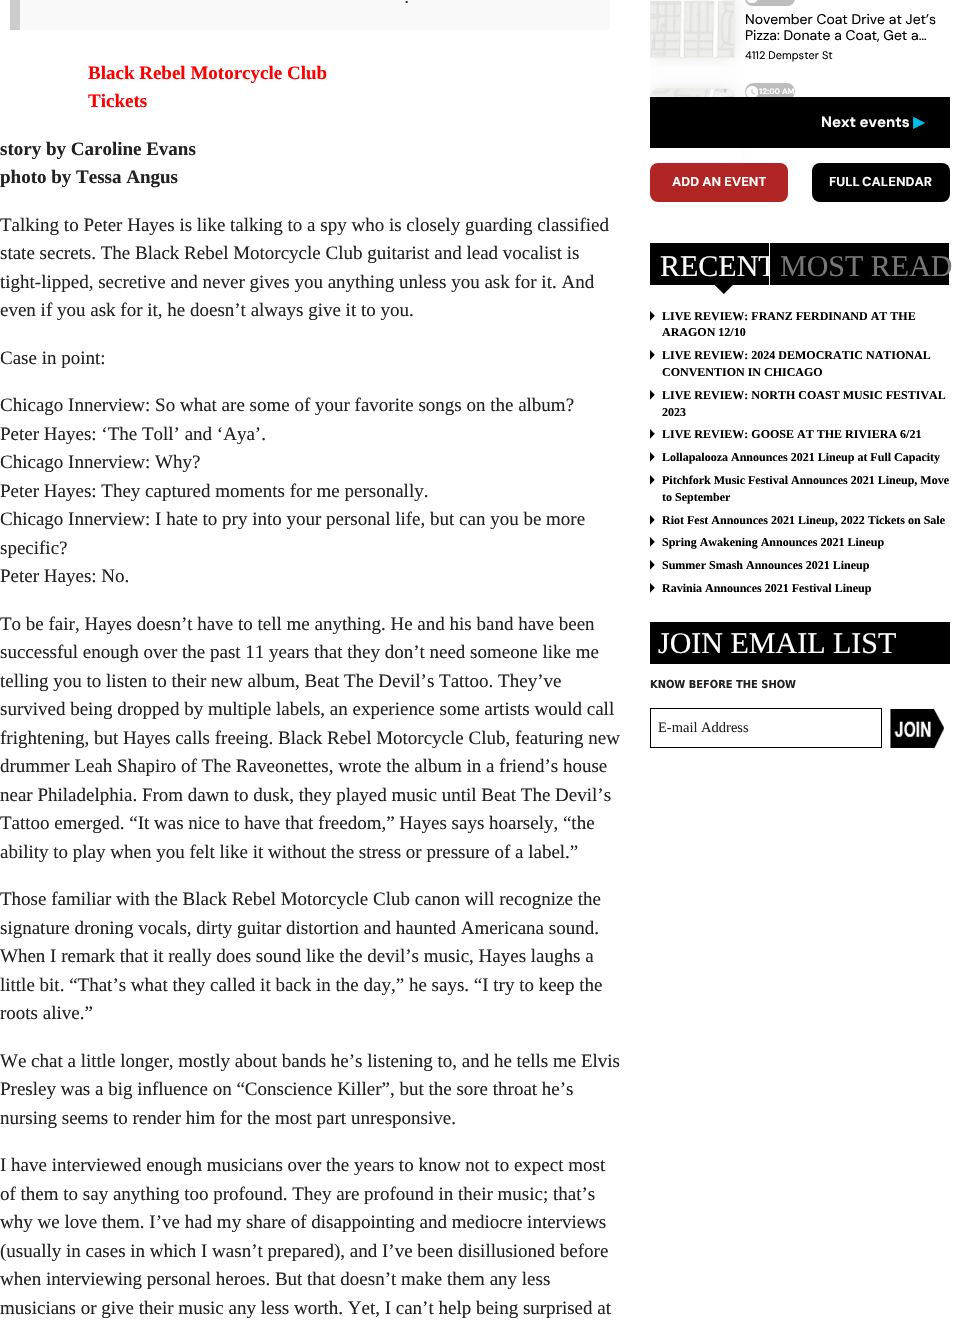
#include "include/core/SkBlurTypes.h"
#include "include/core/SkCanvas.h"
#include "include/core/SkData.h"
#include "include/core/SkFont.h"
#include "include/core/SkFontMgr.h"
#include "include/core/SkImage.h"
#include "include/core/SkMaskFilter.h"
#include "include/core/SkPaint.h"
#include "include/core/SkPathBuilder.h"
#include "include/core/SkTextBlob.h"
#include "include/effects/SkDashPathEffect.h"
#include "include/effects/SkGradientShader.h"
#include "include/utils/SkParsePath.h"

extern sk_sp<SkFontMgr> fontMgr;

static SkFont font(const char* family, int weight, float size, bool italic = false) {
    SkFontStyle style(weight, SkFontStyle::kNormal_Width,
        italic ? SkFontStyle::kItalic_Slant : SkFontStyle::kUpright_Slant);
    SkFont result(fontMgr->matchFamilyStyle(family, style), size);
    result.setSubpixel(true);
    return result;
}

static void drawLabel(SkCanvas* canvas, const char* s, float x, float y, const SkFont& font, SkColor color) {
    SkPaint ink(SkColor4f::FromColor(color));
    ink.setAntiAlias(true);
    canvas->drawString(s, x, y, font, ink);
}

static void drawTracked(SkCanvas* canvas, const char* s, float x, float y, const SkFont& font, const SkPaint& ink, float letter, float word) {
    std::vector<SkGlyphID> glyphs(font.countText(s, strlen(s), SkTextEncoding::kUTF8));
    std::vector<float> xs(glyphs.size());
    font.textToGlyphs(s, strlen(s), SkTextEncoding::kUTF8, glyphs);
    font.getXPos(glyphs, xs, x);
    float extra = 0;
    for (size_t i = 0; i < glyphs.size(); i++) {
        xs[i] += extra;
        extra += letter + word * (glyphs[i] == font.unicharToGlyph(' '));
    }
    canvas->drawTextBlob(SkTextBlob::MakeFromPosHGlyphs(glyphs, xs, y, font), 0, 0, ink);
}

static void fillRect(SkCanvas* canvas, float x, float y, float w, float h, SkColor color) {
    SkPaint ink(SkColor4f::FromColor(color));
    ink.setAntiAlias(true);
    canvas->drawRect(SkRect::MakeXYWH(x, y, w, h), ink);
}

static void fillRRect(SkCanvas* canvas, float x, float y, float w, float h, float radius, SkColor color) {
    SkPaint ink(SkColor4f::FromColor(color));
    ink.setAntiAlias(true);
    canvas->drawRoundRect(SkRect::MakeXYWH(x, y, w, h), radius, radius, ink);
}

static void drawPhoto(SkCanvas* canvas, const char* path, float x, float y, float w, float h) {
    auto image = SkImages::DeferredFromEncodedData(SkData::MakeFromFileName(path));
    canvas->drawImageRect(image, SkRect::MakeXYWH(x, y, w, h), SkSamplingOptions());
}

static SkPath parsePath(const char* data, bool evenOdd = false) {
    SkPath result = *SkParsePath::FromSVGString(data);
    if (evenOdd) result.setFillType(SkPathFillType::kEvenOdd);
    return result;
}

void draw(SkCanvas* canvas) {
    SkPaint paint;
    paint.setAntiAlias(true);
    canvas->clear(0xFFFFFFFF);
    fillRect(canvas, 20, 0, 590, 30, 0xFFF9F9F9);
    fillRect(canvas, 10, 0, 10, 30, 0xFFCCCCCC);
    SkFont font1 = font("Liberation Sans", 400, 19);
    drawLabel(canvas, ".", 404, 3, font1, 0xFF333333);
    SkFont font2 = font("Liberation Serif", 700, 19);
    drawLabel(canvas, "Black Rebel Motorcycle Club", 88, 79, font2, 0xFFFF0000);
    drawLabel(canvas, "Tickets", 88, 107, font2, 0xFFFF0000);
    drawLabel(canvas, "story by Caroline Evans", 0, 155, font2, 0xFF222222);
    drawLabel(canvas, "photo by Tessa Angus", 0, 183, font2, 0xFF222222);
    SkFont font3 = font("Liberation Serif", 400, 19);
    drawLabel(canvas, "Talking to Peter Hayes is like talking to a spy who is closely guarding classified", 0, 231, font3, 0xFF222222);
    drawLabel(canvas, "state secrets. The Black Rebel Motorcycle Club guitarist and lead vocalist is", 0, 259, font3, 0xFF222222);
    drawLabel(canvas, "tight-lipped, secretive and never gives you anything unless you ask for it. And", 0, 288, font3, 0xFF222222);
    drawLabel(canvas, "even if you ask for it, he doesn’t always give it to you.", 0, 316, font3, 0xFF222222);
    drawLabel(canvas, "Case in point:", 0, 364, font3, 0xFF222222);
    drawLabel(canvas, "Chicago Innerview: So what are some of your favorite songs on the album?", 0, 411, font3, 0xFF222222);
    drawLabel(canvas, "Peter Hayes: ‘The Toll’ and ‘Aya’.", 0, 440, font3, 0xFF222222);
    drawLabel(canvas, "Chicago Innerview: Why?", 0, 468, font3, 0xFF222222);
    drawLabel(canvas, "Peter Hayes: They captured moments for me personally.", 0, 497, font3, 0xFF222222);
    drawLabel(canvas, "Chicago Innerview: I hate to pry into your personal life, but can you be more", 0, 525, font3, 0xFF222222);
    drawLabel(canvas, "specific?", 0, 554, font3, 0xFF222222);
    drawLabel(canvas, "Peter Hayes: No.", 0, 582, font3, 0xFF222222);
    drawLabel(canvas, "To be fair, Hayes doesn’t have to tell me anything. He and his band have been", 0, 630, font3, 0xFF222222);
    drawLabel(canvas, "successful enough over the past 11 years that they don’t need someone like me", 0, 658, font3, 0xFF222222);
    drawLabel(canvas, "telling you to listen to their new album, Beat The Devil’s Tattoo. They’ve", 0, 687, font3, 0xFF222222);
    drawLabel(canvas, "survived being dropped by multiple labels, an experience some artists would call", 0, 715, font3, 0xFF222222);
    drawLabel(canvas, "frightening, but Hayes calls freeing. Black Rebel Motorcycle Club, featuring new", 0, 744, font3, 0xFF222222);
    drawLabel(canvas, "drummer Leah Shapiro of The Raveonettes, wrote the album in a friend’s house", 0, 772, font3, 0xFF222222);
    drawLabel(canvas, "near Philadelphia. From dawn to dusk, they played music until Beat The Devil’s", 0, 801, font3, 0xFF222222);
    drawLabel(canvas, "Tattoo emerged. “It was nice to have that freedom,” Hayes says hoarsely, “the", 0, 829, font3, 0xFF222222);
    drawLabel(canvas, "ability to play when you felt like it without the stress or pressure of a label.”", 0, 858, font3, 0xFF222222);
    drawLabel(canvas, "Those familiar with the Black Rebel Motorcycle Club canon will recognize the", 0, 905, font3, 0xFF222222);
    drawLabel(canvas, "signature droning vocals, dirty guitar distortion and haunted Americana sound.", 0, 934, font3, 0xFF222222);
    drawLabel(canvas, "When I remark that it really does sound like the devil’s music, Hayes laughs a", 0, 962, font3, 0xFF222222);
    drawLabel(canvas, "little bit. “That’s what they called it back in the day,” he says. “I try to keep the", 0, 991, font3, 0xFF222222);
    drawLabel(canvas, "roots alive.”", 0, 1019, font3, 0xFF222222);
    drawLabel(canvas, "We chat a little longer, mostly about bands he’s listening to, and he tells me Elvis", 0, 1067, font3, 0xFF222222);
    drawLabel(canvas, "Presley was a big influence on “Conscience Killer”, but the sore throat he’s", 0, 1095, font3, 0xFF222222);
    drawLabel(canvas, "nursing seems to render him for the most part unresponsive.", 0, 1124, font3, 0xFF222222);
    drawLabel(canvas, "I have interviewed enough musicians over the years to know not to expect most", 0, 1171, font3, 0xFF222222);
    drawLabel(canvas, "of them to say anything too profound. They are profound in their music; that’s", 0, 1200, font3, 0xFF222222);
    drawLabel(canvas, "why we love them. I’ve had my share of disappointing and mediocre interviews", 0, 1228, font3, 0xFF222222);
    drawLabel(canvas, "(usually in cases in which I wasn’t prepared), and I’ve been disillusioned before", 0, 1257, font3, 0xFF222222);
    drawLabel(canvas, "when interviewing personal heroes. But that doesn’t make them any less", 0, 1285, font3, 0xFF222222);
    drawLabel(canvas, "musicians or give their music any less worth. Yet, I can’t help being surprised at", 0, 1314, font3, 0xFF222222);
    fillRRect(canvas, 745, -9, 50, 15, 8.5f, 0xFFBDBDBD);
    drawPhoto(canvas, "assets/img2.png", 747, 0, 11, 3);
    canvas->save();
    canvas->clipRect(SkRect::MakeXYWH(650, 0, 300, 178));
    paint.setColor(0xFFE8E8E8);
    paint.setMaskFilter(SkMaskFilter::MakeBlur(kNormal_SkBlurStyle, 7.5f));
    canvas->drawRoundRect(SkRect::MakeXYWH(650, -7, 85, 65), 8, 8, paint);
    paint.setMaskFilter(nullptr);
    canvas->restore();
    paint.setStroke(true);
    paint.setStrokeWidth(1);
    paint.setColor(0xFFEDEDED);
    canvas->drawRect(SkRect::MakeXYWH(650.5f, -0.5f, 84, 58), paint);
    drawPhoto(canvas, "assets/img1.png", 651, 0, 83, 57);
    SkFont font4 = font("DM Sans", 400, 14);
    drawLabel(canvas, "November Coat Drive at Jet’s", 745, 24, font4, 0xFF000000);
    drawLabel(canvas, "Pizza: Donate a Coat, Get a…", 745, 40, font4, 0xFF000000);
    SkFont font5 = font("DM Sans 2", 400, 11);
    drawLabel(canvas, "4112 Dempster St", 745, 59, font5, 0xFF000000);
    fillRRect(canvas, 745, 83, 50, 17, 8.5f, 0xFFBDBDBD);
    drawPhoto(canvas, "assets/img4.png", 746, 86, 12, 11);
    canvas->save();
    canvas->clipRect(SkRect::MakeXYWH(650, 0, 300, 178));
    paint.setStroke(false);
    paint.setColor(0xFFE8E8E8);
    paint.setMaskFilter(SkMaskFilter::MakeBlur(kNormal_SkBlurStyle, 7.5f));
    canvas->drawRoundRect(SkRect::MakeXYWH(650, 88, 85, 65), 8, 8, paint);
    paint.setMaskFilter(nullptr);
    canvas->restore();
    paint.setStroke(true);
    paint.setColor(0xFFEDEDED);
    canvas->drawPath(parsePath("M658 88.5H727C731 88.5 734.5 92 734.5 96V152.5H650.5V96C650.5 92 654 88.5 658 88.5Z"), paint);
    drawPhoto(canvas, "assets/img3.png", 651, 89, 83, 8);
    SkFont font6 = font("DM Sans", 700, 8);
    drawLabel(canvas, "12:00 AM", 759, 94, font6, 0xFFFFFFFF);
    fillRect(canvas, 650, 148, 92, 14, 0xFFFFFFFF);
    fillRect(canvas, 650, 97, 300, 51, 0xFF000000);
    SkFont font7 = font("DM Sans 2", 700, 15);
    drawLabel(canvas, "Next events", 821, 127, font7, 0xFFFFFFFF);
    SkFont font8 = font("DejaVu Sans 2", 700, 15);
    drawLabel(canvas, "▶", 913, 127, font8, 0xFF00BCE9);
    fillRRect(canvas, 650, 163, 138, 39, 8, 0xFFB12524);
    SkFont font9 = font("DM Sans", 700, 13);
    drawLabel(canvas, "ADD AN EVENT", 672, 186, font9, 0xFFFFFFFF);
    fillRRect(canvas, 812, 163, 138, 39, 8, 0xFF000000);
    paint.setStroke(false);
    paint.setColor(0xFFFFFFFF);
    drawTracked(canvas, "FULL CALENDAR", 829, 186, font9, paint, 0, -1);
    fillRect(canvas, 650, 243, 119, 42, 0xFF000000);
    drawPhoto(canvas, "assets/img5.png", 650, 285, 119, 10);
    SkFont font10 = font("Liberation Serif", 400, 30);
    drawLabel(canvas, "RECENT", 660, 276, font10, 0xFFFFFFFF);
    fillRect(canvas, 770, 243, 179, 42, 0xFF000000);
    drawLabel(canvas, "MOST READ", 780, 276, font10, 0xFF777777);
    drawPhoto(canvas, "assets/img6.png", 650, 311, 5, 10);
    SkFont font11 = font("Liberation Serif", 700, 12);
    drawLabel(canvas, "LIVE REVIEW: FRANZ FERDINAND AT THE", 662, 320, font11, 0xFF000000);
    drawLabel(canvas, "ARAGON 12/10", 662, 336, font11, 0xFF000000);
    drawPhoto(canvas, "assets/img6.png", 650, 350, 5, 10);
    drawLabel(canvas, "LIVE REVIEW: 2024 DEMOCRATIC NATIONAL", 662, 359, font11, 0xFF000000);
    drawLabel(canvas, "CONVENTION IN CHICAGO", 662, 376, font11, 0xFF000000);
    drawPhoto(canvas, "assets/img6.png", 650, 390, 5, 10);
    drawLabel(canvas, "LIVE REVIEW: NORTH COAST MUSIC FESTIVAL", 662, 399, font11, 0xFF000000);
    drawLabel(canvas, "2023", 662, 416, font11, 0xFF000000);
    drawPhoto(canvas, "assets/img6.png", 650, 429, 5, 10);
    drawLabel(canvas, "LIVE REVIEW: GOOSE AT THE RIVIERA 6/21", 662, 438, font11, 0xFF000000);
    drawPhoto(canvas, "assets/img6.png", 650, 452, 5, 10);
    drawLabel(canvas, "Lollapalooza Announces 2021 Lineup at Full Capacity", 662, 461, font11, 0xFF000000);
    drawPhoto(canvas, "assets/img6.png", 650, 475, 5, 10);
    drawLabel(canvas, "Pitchfork Music Festival Announces 2021 Lineup, Move", 662, 484, font11, 0xFF000000);
    drawLabel(canvas, "to September", 662, 501, font11, 0xFF000000);
    drawPhoto(canvas, "assets/img6.png", 650, 515, 5, 10);
    drawLabel(canvas, "Riot Fest Announces 2021 Lineup, 2022 Tickets on Sale", 662, 524, font11, 0xFF000000);
    drawPhoto(canvas, "assets/img6.png", 650, 537, 5, 10);
    drawLabel(canvas, "Spring Awakening Announces 2021 Lineup", 662, 546, font11, 0xFF000000);
    drawPhoto(canvas, "assets/img6.png", 650, 560, 5, 10);
    drawLabel(canvas, "Summer Smash Announces 2021 Lineup", 662, 569, font11, 0xFF000000);
    drawPhoto(canvas, "assets/img6.png", 650, 583, 5, 10);
    drawLabel(canvas, "Ravinia Announces 2021 Festival Lineup", 662, 592, font11, 0xFF000000);
    fillRect(canvas, 650, 622, 300, 42, 0xFF000000);
    drawLabel(canvas, "JOIN EMAIL LIST", 658, 653, font10, 0xFFFFFFFF);
    SkFont font12 = font("DejaVu Sans", 700, 11);
    drawLabel(canvas, "KNOW BEFORE THE SHOW", 650, 688, font12, 0xFF222222);
    paint.setStroke(true);
    paint.setColor(0xFF000000);
    canvas->drawRect(SkRect::MakeXYWH(650.5f, 708.5f, 231, 39), paint);
    SkFont font13 = font("Liberation Serif", 400, 14.5f);
    drawLabel(canvas, "E-mail Address", 658, 732, font13, 0xFF222222);
    drawPhoto(canvas, "assets/img7.png", 890, 709, 54, 39);
}
